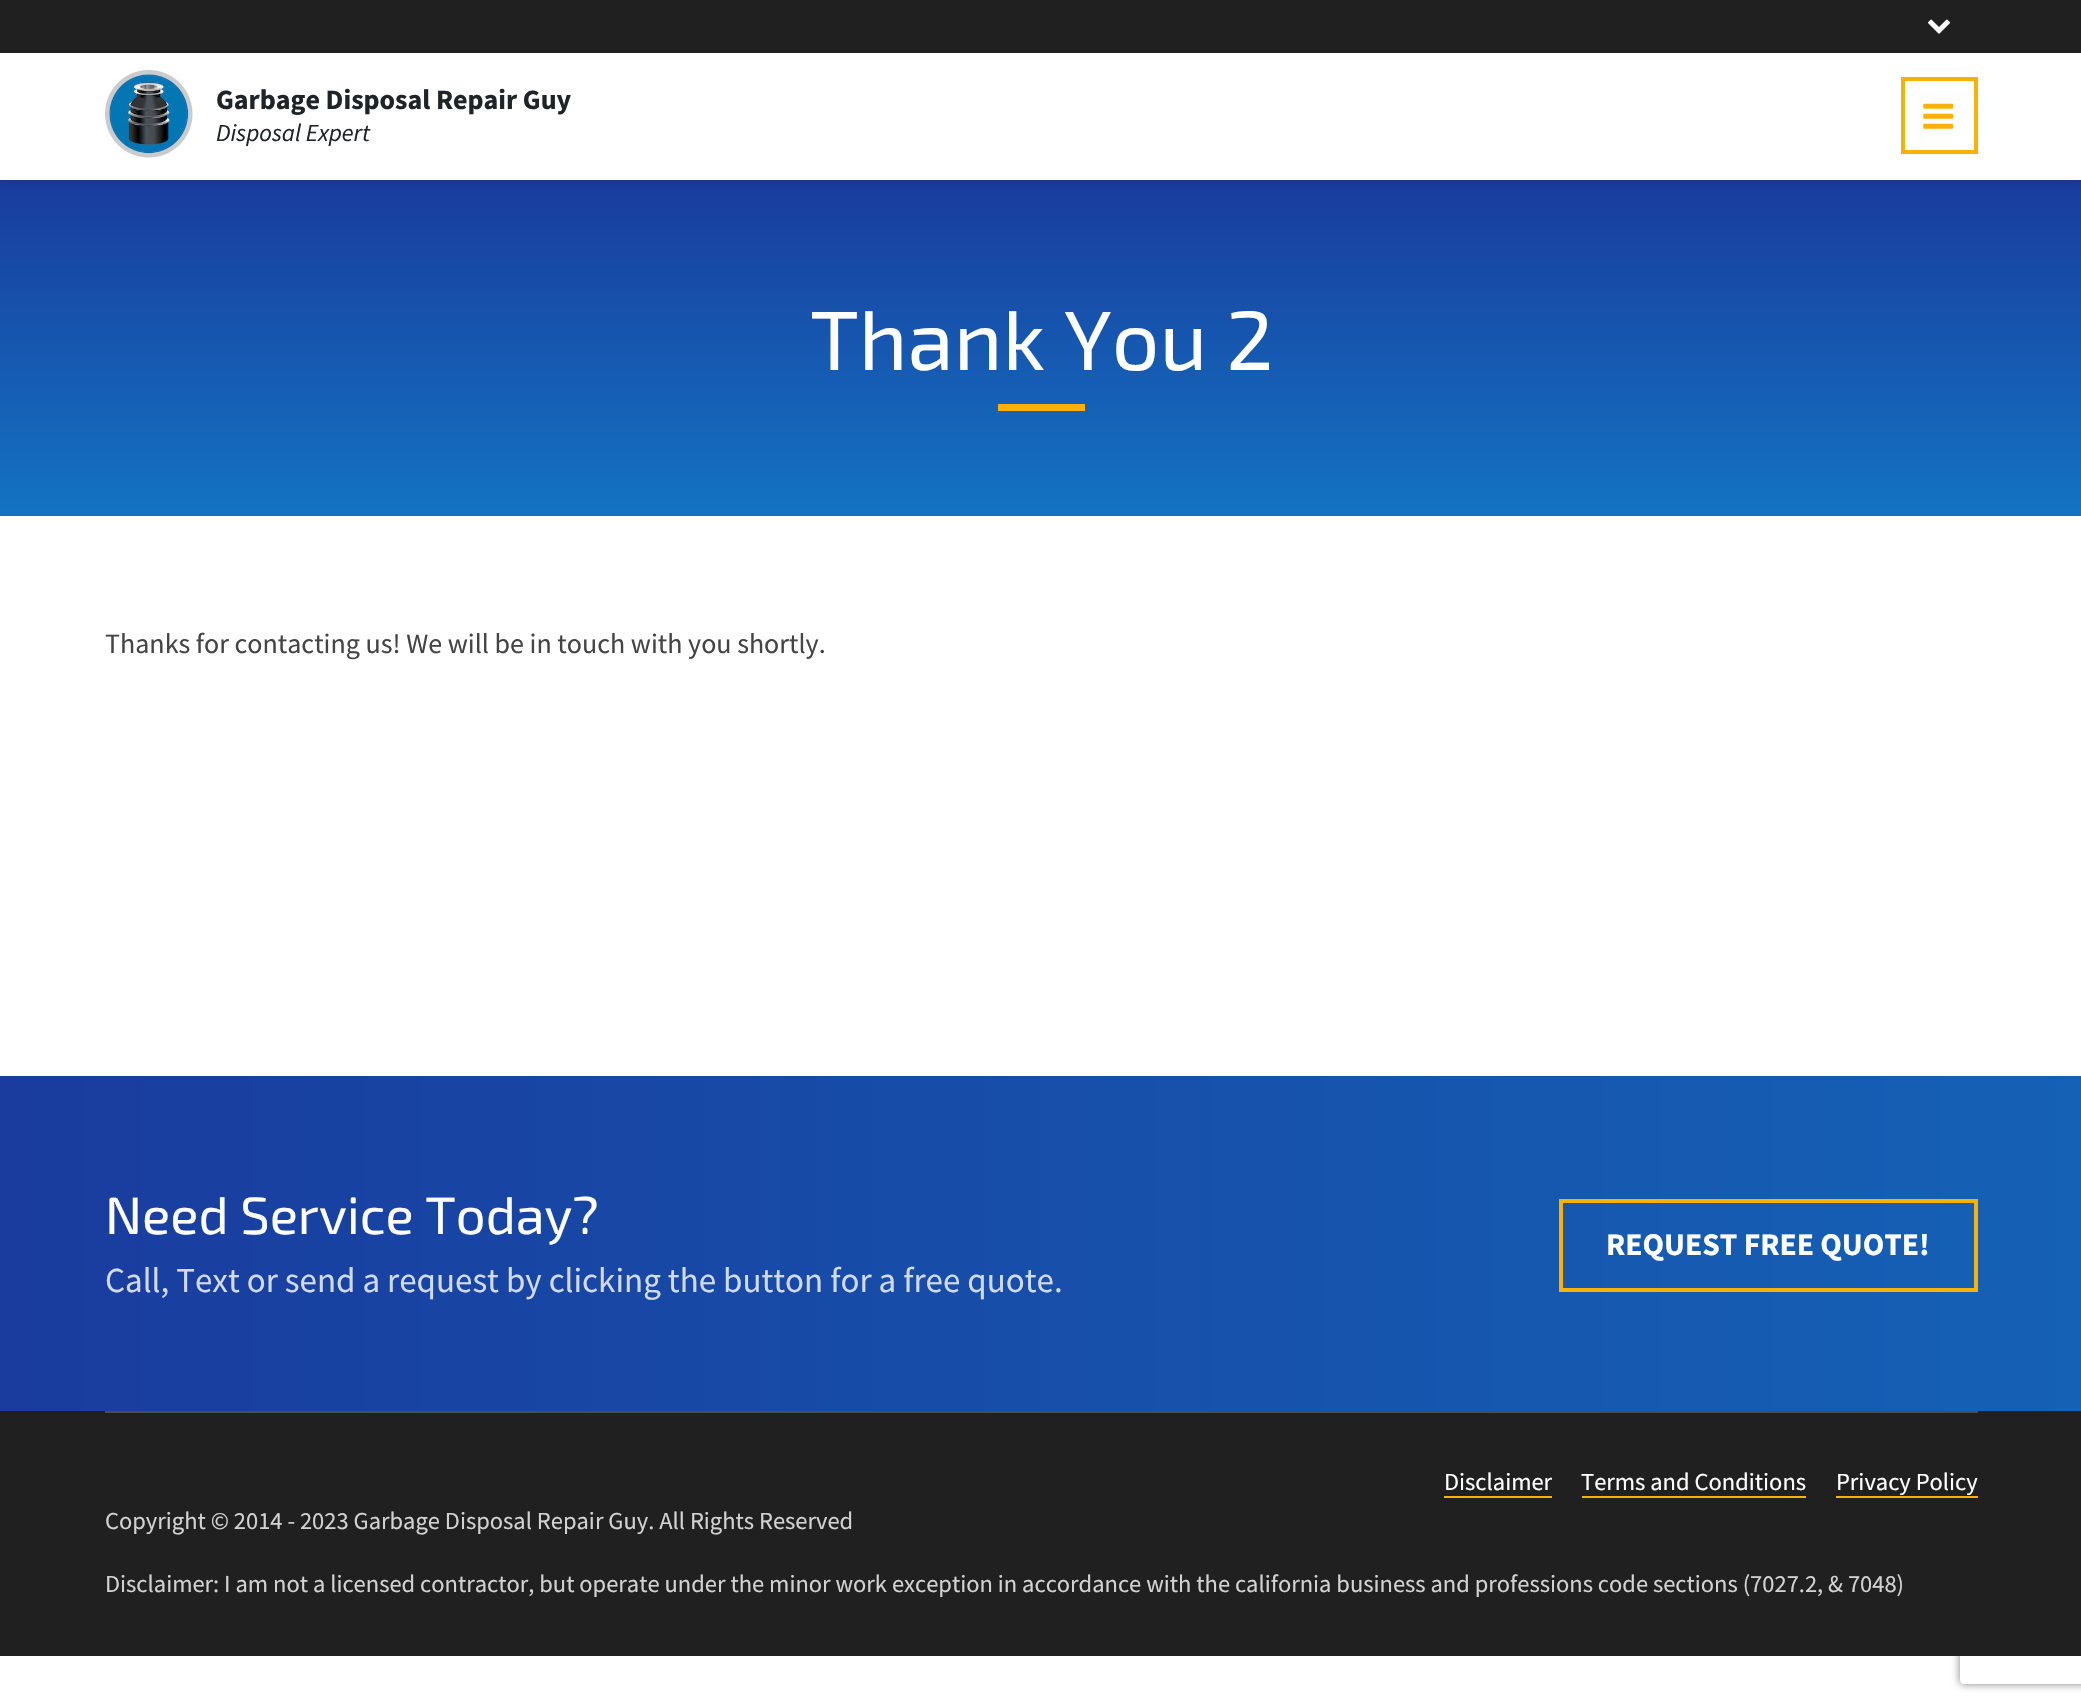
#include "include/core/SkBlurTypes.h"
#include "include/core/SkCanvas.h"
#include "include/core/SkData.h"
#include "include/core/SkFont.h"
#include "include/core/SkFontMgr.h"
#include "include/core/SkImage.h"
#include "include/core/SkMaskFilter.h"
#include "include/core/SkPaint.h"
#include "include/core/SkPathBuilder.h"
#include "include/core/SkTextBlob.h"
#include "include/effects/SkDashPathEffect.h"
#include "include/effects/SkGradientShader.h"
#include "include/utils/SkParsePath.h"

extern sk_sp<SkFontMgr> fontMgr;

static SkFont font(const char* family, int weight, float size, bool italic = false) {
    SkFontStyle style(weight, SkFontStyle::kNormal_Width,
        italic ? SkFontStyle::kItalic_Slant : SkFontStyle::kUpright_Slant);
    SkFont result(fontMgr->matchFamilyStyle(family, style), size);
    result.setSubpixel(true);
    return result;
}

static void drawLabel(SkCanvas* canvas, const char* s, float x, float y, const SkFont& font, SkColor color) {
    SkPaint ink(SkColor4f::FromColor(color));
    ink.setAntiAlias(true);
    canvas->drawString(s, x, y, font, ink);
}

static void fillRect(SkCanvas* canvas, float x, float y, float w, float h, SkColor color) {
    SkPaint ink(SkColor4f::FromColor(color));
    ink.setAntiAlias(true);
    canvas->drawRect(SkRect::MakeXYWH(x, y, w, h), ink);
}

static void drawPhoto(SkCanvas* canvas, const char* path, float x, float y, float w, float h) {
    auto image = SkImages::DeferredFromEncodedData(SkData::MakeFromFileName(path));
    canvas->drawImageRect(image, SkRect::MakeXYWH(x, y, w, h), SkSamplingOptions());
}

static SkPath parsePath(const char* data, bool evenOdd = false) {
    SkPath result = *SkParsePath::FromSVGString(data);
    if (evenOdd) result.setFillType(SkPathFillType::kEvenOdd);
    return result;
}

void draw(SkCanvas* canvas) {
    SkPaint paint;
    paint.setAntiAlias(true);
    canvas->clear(0xFFFFFFFF);
    {
        const SkColor colors[] = {0xFF193C9E, 0xFF1373C2};
        const float stops[] = {0, 1};
        const SkPoint ends[] = {{1041, 180}, {1041, 516}};
        paint.setShader(SkGradientShader::MakeLinear(ends, colors, stops, 2, SkTileMode::kClamp));
        paint.setAlpha(255);
    }
    canvas->drawRect(SkRect::MakeXYWH(0, 180, 2081, 336), paint);
    canvas->save();
    canvas->clipRect(SkRect::MakeXYWH(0, 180, 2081, 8));
    paint.setShader(nullptr);
    paint.setColor(0x1A000000);
    paint.setMaskFilter(SkMaskFilter::MakeBlur(kNormal_SkBlurStyle, 4.5f));
    canvas->drawRect(SkRect::MakeXYWH(0, 56, 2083, 128), paint);
    paint.setMaskFilter(nullptr);
    canvas->restore();
    fillRect(canvas, 0, 0, 2081, 53, 0xFF202020);
    drawPhoto(canvas, "assets/img1.png", 1928, 19, 22, 15);
    drawPhoto(canvas, "assets/img2.png", 105, 70, 88, 88);
    SkFont font1 = font("Source Sans Pro", 700, 28);
    drawLabel(canvas, "Garbage Disposal Repair Guy", 216, 109, font1, 0xFF1E2427);
    SkFont font2 = font("Source Sans Pro", 400, 24.5f, true);
    drawLabel(canvas, "Disposal Expert", 216, 141, font2, 0xFF1E2427);
    paint.setStroke(true);
    paint.setStrokeWidth(4);
    paint.setColor(0xFFF9B109);
    canvas->drawRect(SkRect::MakeXYWH(1903, 79, 73, 73), paint);
    drawPhoto(canvas, "assets/img3.png", 1923, 103, 31, 26);
    SkFont font3 = font("Exo 2", 400, 84);
    drawLabel(canvas, "Thank You 2", 810, 370, font3, 0xFFFFFFFF);
    fillRect(canvas, 998, 404, 87, 7, 0xFFF9B109);
    SkFont font4 = font("Source Sans Pro", 400, 28);
    drawLabel(canvas, "Thanks for contacting us! We will be in touch with you shortly.", 105, 653, font4, 0xFF444444);
    canvas->save();
    canvas->clipPath(parsePath("M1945 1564H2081V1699H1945ZM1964 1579H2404C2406 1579 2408 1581 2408 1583V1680C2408 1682 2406 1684 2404 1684H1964C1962 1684 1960 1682 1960 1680V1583C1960 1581 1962 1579 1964 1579Z", true), true);
    paint.setStroke(false);
    paint.setColor(0xFF808080);
    paint.setMaskFilter(SkMaskFilter::MakeBlur(kNormal_SkBlurStyle, 4.5f));
    canvas->drawRoundRect(SkRect::MakeXYWH(1960, 1579, 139, 105), 4, 4, paint);
    paint.setMaskFilter(nullptr);
    canvas->restore();
    fillRect(canvas, 0, 1411, 2081, 245, 0xFF202020);
    {
        const SkColor colors[] = {0xFF193C9E, 0xFF1561B6};
        const float stops[] = {0, 1};
        const SkPoint ends[] = {{0, 1243}, {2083, 1243}};
        paint.setShader(SkGradientShader::MakeLinear(ends, colors, stops, 2, SkTileMode::kClamp));
        paint.setAlpha(255);
    }
    canvas->drawRect(SkRect::MakeXYWH(0, 1076, 2081, 335), paint);
    SkFont font5 = font("Exo 2", 400, 52.5f);
    drawLabel(canvas, "Need Service Today?", 105, 1234, font5, 0xFFFFFFFF);
    paint.setStroke(true);
    paint.setShader(nullptr);
    paint.setColor(0xFFF9B109);
    canvas->drawRect(SkRect::MakeXYWH(1561, 1201, 415, 89), paint);
    SkFont font6 = font("Source Sans Pro", 700, 31.5f);
    drawLabel(canvas, "REQUEST FREE QUOTE!", 1606, 1255, font6, 0xFFFFFFFF);
    SkFont font7 = font("Source Sans Pro", 400, 35);
    drawLabel(canvas, "Call, Text or send a request by clicking the button for a free quote.", 105, 1292, font7, 0xFFD1DAED);
    fillRect(canvas, 105, 1411, 1873, 2, 0xFF4D4D4D);
    SkFont font8 = font("Source Sans Pro", 400, 24.5f);
    drawLabel(canvas, "Disclaimer", 1444, 1490, font8, 0xFFFFFFFF);
    fillRect(canvas, 1444, 1496, 108, 2, 0xFFF9B109);
    drawLabel(canvas, "Terms and Conditions", 1581, 1490, font8, 0xFFFFFFFF);
    fillRect(canvas, 1582, 1496, 224, 2, 0xFFF9B109);
    drawLabel(canvas, "Privacy Policy", 1836, 1490, font8, 0xFFFFFFFF);
    paint.setStroke(false);
    canvas->drawPath(parsePath("M1836 1496V1498H1978V1467V1496Z"), paint);
    drawLabel(canvas, "Copyright © 2014 - 2023 Garbage Disposal Repair Guy. All Rights Reserved", 105, 1529, font8, 0xFFD2D2D2);
    drawLabel(canvas, "Disclaimer: I am not a licensed contractor, but operate under the minor work exception in accordance with the california business and professions code sections (7027.2, & 7048)", 105, 1592, font8, 0xFFD2D2D2);
}
